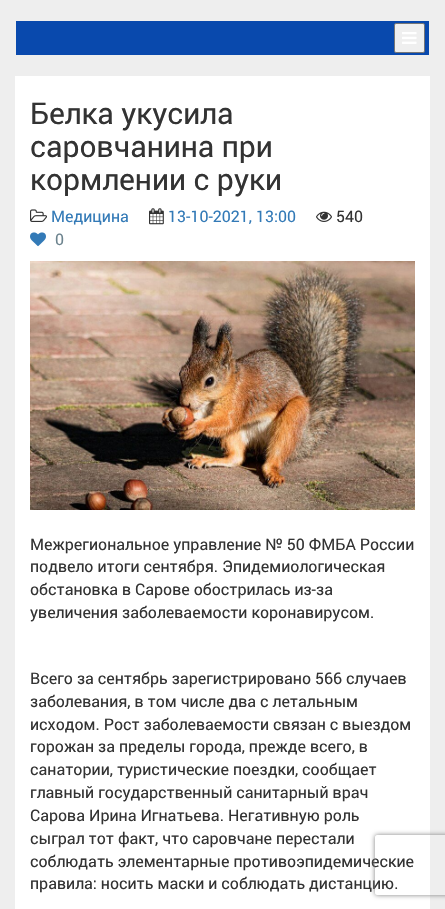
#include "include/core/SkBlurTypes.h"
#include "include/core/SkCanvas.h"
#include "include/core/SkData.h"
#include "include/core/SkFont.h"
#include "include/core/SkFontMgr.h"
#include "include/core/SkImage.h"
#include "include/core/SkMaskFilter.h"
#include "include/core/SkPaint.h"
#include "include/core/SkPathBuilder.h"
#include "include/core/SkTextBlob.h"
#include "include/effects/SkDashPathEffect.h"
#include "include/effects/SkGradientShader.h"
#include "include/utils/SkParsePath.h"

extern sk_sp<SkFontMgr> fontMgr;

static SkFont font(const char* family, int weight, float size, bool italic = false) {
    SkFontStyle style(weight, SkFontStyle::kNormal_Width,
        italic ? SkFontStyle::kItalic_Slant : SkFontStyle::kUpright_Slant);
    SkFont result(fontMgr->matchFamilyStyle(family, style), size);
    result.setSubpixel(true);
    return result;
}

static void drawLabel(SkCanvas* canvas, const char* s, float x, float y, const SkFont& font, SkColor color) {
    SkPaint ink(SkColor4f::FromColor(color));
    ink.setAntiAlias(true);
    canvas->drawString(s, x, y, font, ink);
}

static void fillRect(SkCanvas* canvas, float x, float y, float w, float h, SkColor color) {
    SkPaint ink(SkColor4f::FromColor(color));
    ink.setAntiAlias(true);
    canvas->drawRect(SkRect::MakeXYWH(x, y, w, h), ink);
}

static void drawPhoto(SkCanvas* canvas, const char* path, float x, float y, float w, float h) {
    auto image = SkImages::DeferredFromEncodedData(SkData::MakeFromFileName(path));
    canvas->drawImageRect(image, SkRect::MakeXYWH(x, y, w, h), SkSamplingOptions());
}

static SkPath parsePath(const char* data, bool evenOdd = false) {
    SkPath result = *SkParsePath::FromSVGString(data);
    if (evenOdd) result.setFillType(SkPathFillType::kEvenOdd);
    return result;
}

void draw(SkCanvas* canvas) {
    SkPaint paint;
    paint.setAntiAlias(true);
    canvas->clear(0xFFEEEEEE);
    fillRect(canvas, 16, 21, 413, 34, 0xFF0949AD);
    paint.setColor(0xFFEFEFEF);
    canvas->drawRoundRect(SkRect::MakeXYWH(394.5f, 23.5f, 30, 29), 1.5f, 1.5f, paint);
    paint.setStroke(true);
    paint.setStrokeWidth(1);
    paint.setColor(0xFF767676);
    canvas->drawRoundRect(SkRect::MakeXYWH(394.5f, 23.5f, 30, 29), 1.5f, 1.5f, paint);
    drawPhoto(canvas, "assets/img1.png", 402, 32, 15, 12);
    fillRect(canvas, 15, 76, 415, 833, 0xFFFFFFFF);
    SkFont font1 = font("Roboto", 400, 30);
    drawLabel(canvas, "Белка укусила", 30, 124, font1, 0xFF333333);
    drawLabel(canvas, "саровчанина при", 30, 157, font1, 0xFF333333);
    drawLabel(canvas, "кормлении с руки", 30, 190, font1, 0xFF333333);
    drawPhoto(canvas, "assets/img2.png", 30, 209, 17, 13);
    SkFont font2 = font("Roboto", 400, 16);
    drawLabel(canvas, "Медицина", 51, 222, font2, 0xFF337AB7);
    drawPhoto(canvas, "assets/img3.png", 149, 208, 15, 17);
    drawLabel(canvas, "13-10-2021, 13:00", 168, 222, font2, 0xFF337AB7);
    drawPhoto(canvas, "assets/img4.png", 316, 211, 16, 11);
    drawLabel(canvas, "540", 336, 222, font2, 0xFF333333);
    drawPhoto(canvas, "assets/img5.png", 30, 232, 16, 15);
    drawLabel(canvas, "0", 55, 245, font2, 0xFF6C838E);
    drawPhoto(canvas, "assets/img6.png", 30, 261, 385, 249);
    drawLabel(canvas, "Межрегиональное управление № 50 ФМБА России", 30, 550, font2, 0xFF333333);
    drawLabel(canvas, "подвело итоги сентября. Эпидемиологическая", 30, 572, font2, 0xFF333333);
    drawLabel(canvas, "обстановка в Сарове обострилась из-за", 30, 595, font2, 0xFF333333);
    drawLabel(canvas, "увеличения заболеваемости коронавирусом.", 30, 618, font2, 0xFF333333);
    drawLabel(canvas, "Всего за сентябрь зарегистрировано 566 случаев", 30, 684, font2, 0xFF333333);
    drawLabel(canvas, "заболевания, в том числе два с летальным", 30, 707, font2, 0xFF333333);
    drawLabel(canvas, "исходом. Рост заболеваемости связан с выездом", 30, 730, font2, 0xFF333333);
    drawLabel(canvas, "горожан за пределы города, прежде всего, в", 30, 752, font2, 0xFF333333);
    drawLabel(canvas, "санатории, туристические поездки, сообщает", 30, 775, font2, 0xFF333333);
    drawLabel(canvas, "главный государственный санитарный врач", 30, 798, font2, 0xFF333333);
    drawLabel(canvas, "Сарова Ирина Игнатьева. Негативную роль", 30, 821, font2, 0xFF333333);
    drawLabel(canvas, "сыграл тот факт, что саровчане перестали", 30, 844, font2, 0xFF333333);
    drawLabel(canvas, "соблюдать элементарные противоэпидемические", 30, 867, font2, 0xFF333333);
    drawLabel(canvas, "правила: носить маски и соблюдать дистанцию.", 30, 889, font2, 0xFF333333);
    canvas->save();
    canvas->clipPath(parsePath("M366 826H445V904H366ZM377 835H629C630 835 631 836 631 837V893C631 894 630 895 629 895H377C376 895 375 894 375 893V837C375 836 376 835 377 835Z", true), true);
    paint.setStroke(false);
    paint.setColor(0xFF808080);
    paint.setMaskFilter(SkMaskFilter::MakeBlur(kNormal_SkBlurStyle, 2.5f));
    canvas->drawRoundRect(SkRect::MakeXYWH(375, 835, 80, 60), 2, 2, paint);
    paint.setMaskFilter(nullptr);
    canvas->restore();
}
